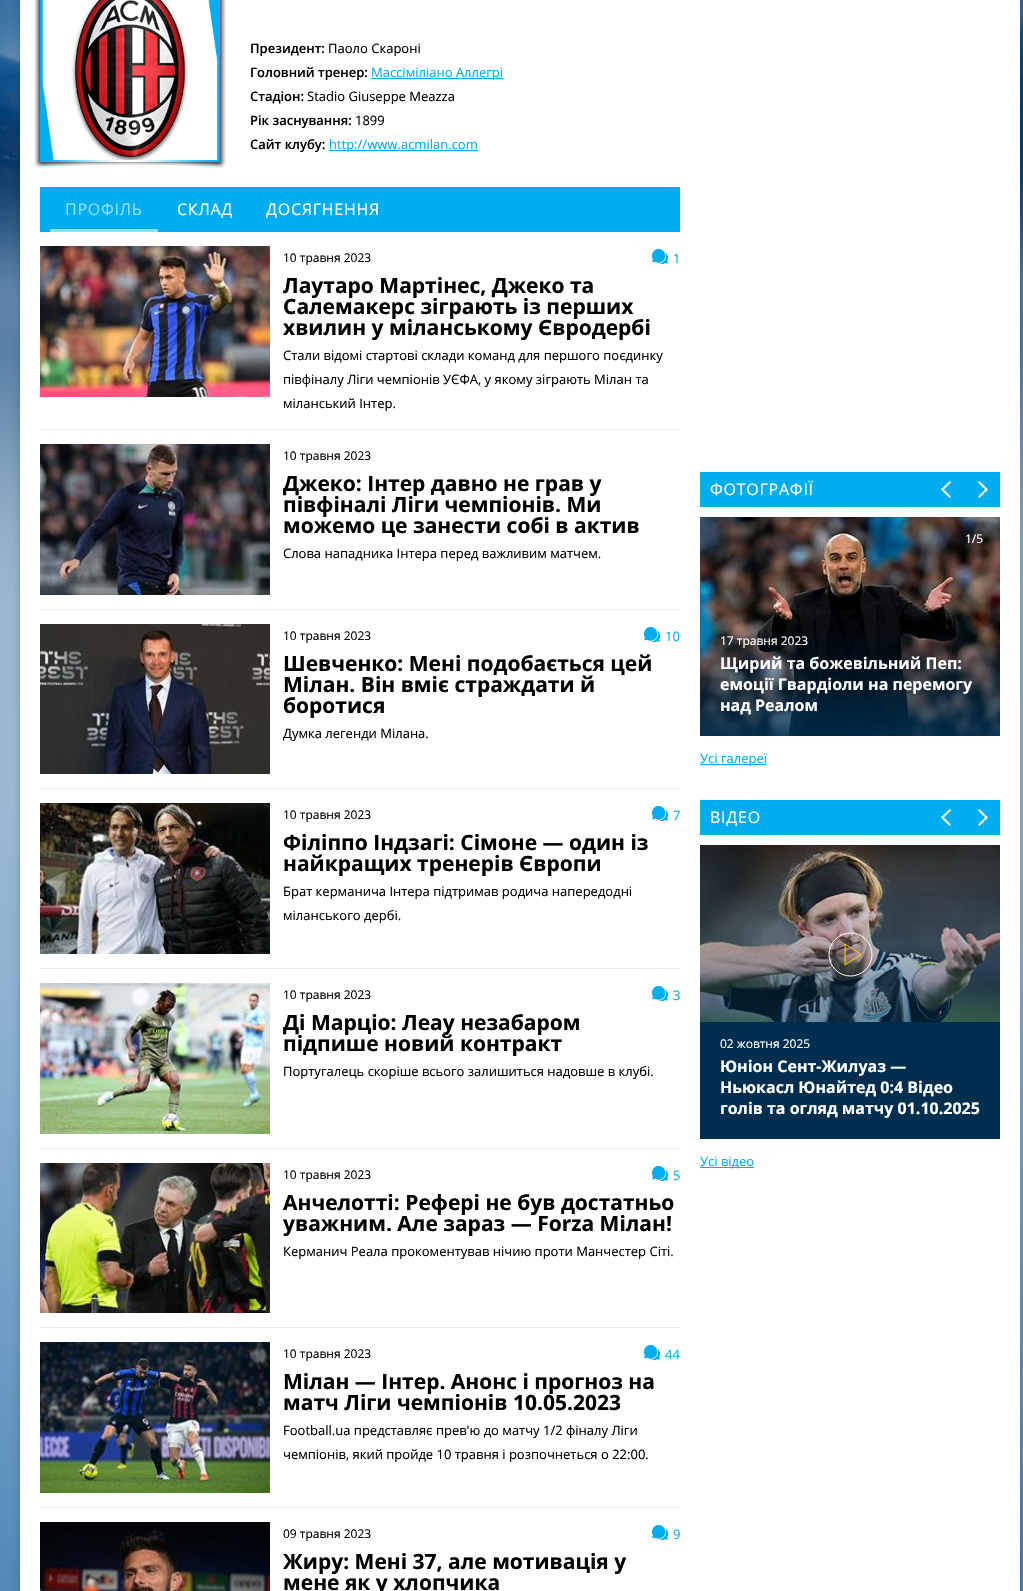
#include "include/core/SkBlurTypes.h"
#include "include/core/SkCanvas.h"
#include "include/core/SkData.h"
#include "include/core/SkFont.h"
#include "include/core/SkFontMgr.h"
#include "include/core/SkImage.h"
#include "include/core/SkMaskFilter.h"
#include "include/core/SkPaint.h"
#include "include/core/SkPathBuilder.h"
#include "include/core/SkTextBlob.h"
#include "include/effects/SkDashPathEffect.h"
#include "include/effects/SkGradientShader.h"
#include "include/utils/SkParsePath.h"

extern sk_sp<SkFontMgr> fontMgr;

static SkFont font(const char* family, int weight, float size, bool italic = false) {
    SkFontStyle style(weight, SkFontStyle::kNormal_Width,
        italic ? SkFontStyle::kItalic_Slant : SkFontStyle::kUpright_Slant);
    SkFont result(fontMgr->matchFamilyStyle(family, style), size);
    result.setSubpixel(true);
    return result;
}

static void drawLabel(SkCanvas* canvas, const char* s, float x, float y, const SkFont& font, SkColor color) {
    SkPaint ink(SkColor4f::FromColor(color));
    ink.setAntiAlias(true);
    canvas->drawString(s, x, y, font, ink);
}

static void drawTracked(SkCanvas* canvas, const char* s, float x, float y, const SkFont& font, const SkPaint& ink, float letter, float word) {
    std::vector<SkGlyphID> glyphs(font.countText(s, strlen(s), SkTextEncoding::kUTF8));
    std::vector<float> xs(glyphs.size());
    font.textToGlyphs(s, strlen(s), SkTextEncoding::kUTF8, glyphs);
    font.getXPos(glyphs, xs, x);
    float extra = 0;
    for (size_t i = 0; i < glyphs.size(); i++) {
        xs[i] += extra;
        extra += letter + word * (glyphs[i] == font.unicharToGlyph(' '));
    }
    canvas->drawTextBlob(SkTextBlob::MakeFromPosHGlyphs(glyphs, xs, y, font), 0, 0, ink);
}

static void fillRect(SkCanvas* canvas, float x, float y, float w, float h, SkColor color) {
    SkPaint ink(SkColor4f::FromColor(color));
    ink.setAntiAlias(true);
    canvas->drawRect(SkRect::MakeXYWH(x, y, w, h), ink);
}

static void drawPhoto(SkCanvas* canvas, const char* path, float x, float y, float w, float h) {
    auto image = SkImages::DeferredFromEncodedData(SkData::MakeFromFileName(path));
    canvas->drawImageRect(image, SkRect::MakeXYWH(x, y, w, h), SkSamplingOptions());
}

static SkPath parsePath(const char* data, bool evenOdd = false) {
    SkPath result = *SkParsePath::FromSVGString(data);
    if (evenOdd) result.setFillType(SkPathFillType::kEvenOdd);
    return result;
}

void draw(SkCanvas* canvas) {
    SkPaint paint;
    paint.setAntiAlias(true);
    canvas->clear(0xFFFFFFFF);
    drawPhoto(canvas, "assets/img1.png", 0, 0, 1023, 1591);
    paint.setColor(0x4D030404);
    paint.setMaskFilter(SkMaskFilter::MakeBlur(kNormal_SkBlurStyle, 5));
    canvas->drawRect(SkRect::MakeXYWH(22, -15, 1000, 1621), paint);
    paint.setMaskFilter(nullptr);
    fillRect(canvas, 20, 0, 1000, 1591, 0xFFFFFFFF);
    drawPhoto(canvas, "assets/img2.png", 34, 0, 192, 168);
    fillRect(canvas, 42, 0, 176, 160, 0xFFFFFFFF);
    drawPhoto(canvas, "assets/img4.png", 71, 0, 118, 160);
    drawPhoto(canvas, "assets/img3.png", 40, 0, 180, 162);
    SkFont font1 = font("Open Sans", 600, 13);
    drawLabel(canvas, "Президент:", 250, 53, font1, 0xFF000000);
    SkFont font2 = font("Open Sans", 400, 13);
    drawLabel(canvas, "Паоло Скароні", 328, 53, font2, 0xFF000000);
    drawLabel(canvas, "Головний тренер:", 250, 77, font1, 0xFF000000);
    fillRect(canvas, 371, 78, 132, 1, 0xFF00AEEF);
    drawLabel(canvas, "Массіміліано Аллегрі", 371, 77, font2, 0xFF00AEEF);
    drawLabel(canvas, "Стадіон:", 250, 101, font1, 0xFF000000);
    drawLabel(canvas, "Stadio Giuseppe Meazza", 307, 101, font2, 0xFF000000);
    drawLabel(canvas, "Рік заснування:", 250, 125, font1, 0xFF000000);
    drawLabel(canvas, "1899", 355, 125, font2, 0xFF000000);
    drawLabel(canvas, "Сайт клубу:", 250, 149, font1, 0xFF000000);
    fillRect(canvas, 329, 150, 149, 1, 0xFF00AEEF);
    drawLabel(canvas, "http://www.acmilan.com", 329, 149, font2, 0xFF00AEEF);
    fillRect(canvas, 40, 187, 640, 45, 0xFF00AEEF);
    SkFont font3 = font("Open Sans", 400, 16);
    paint.setColor(0xFF8DE0FF);
    drawTracked(canvas, "ПРОФІЛЬ", 65, 215, font3, paint, 0.75f, 0);
    fillRect(canvas, 50, 229, 108, 3, 0xFF8DE0FF);
    paint.setColor(0xFFFFFFFF);
    drawTracked(canvas, "СКЛАД", 177, 215, font3, paint, 0.75f, 0);
    drawTracked(canvas, "ДОСЯГНЕННЯ", 266, 215, font3, paint, 0.75f, 0);
    fillRect(canvas, 40, 429, 640, 1, 0xFFEBEBEB);
    drawPhoto(canvas, "assets/img5.png", 40, 246, 230, 151);
    SkFont font4 = font("Open Sans", 400, 12);
    drawLabel(canvas, "10 травня 2023", 283, 262, font4, 0xFF000000);
    drawPhoto(canvas, "assets/img6.png", 652, 249, 16, 15);
    drawLabel(canvas, "1", 673, 263, font2, 0xFF00AEEF);
    SkFont font5 = font("Open Sans", 700, 21);
    drawLabel(canvas, "Лаутаро Мартінес, Джеко та", 283, 293, font5, 0xFF000000);
    drawLabel(canvas, "Салемакерс зіграють із перших", 283, 314, font5, 0xFF000000);
    drawLabel(canvas, "хвилин у міланському Євродербі", 283, 335, font5, 0xFF000000);
    drawLabel(canvas, "Стали відомі стартові склади команд для першого поєдинку", 283, 360, font2, 0xFF000000);
    drawLabel(canvas, "півфіналу Ліги чемпіонів УЄФА, у якому зіграють Мілан та", 283, 384, font2, 0xFF000000);
    drawLabel(canvas, "міланський Інтер.", 283, 408, font2, 0xFF000000);
    fillRect(canvas, 40, 609, 640, 1, 0xFFEBEBEB);
    drawPhoto(canvas, "assets/img7.png", 40, 444, 230, 151);
    drawLabel(canvas, "10 травня 2023", 283, 460, font4, 0xFF000000);
    drawLabel(canvas, "Джеко: Інтер давно не грав у", 283, 491, font5, 0xFF000000);
    drawLabel(canvas, "півфіналі Ліги чемпіонів. Ми", 283, 512, font5, 0xFF000000);
    drawLabel(canvas, "можемо це занести собі в актив", 283, 533, font5, 0xFF000000);
    drawLabel(canvas, "Слова нападника Інтера перед важливим матчем.", 283, 558, font2, 0xFF000000);
    fillRect(canvas, 40, 788, 640, 1, 0xFFEBEBEB);
    drawPhoto(canvas, "assets/img8.png", 40, 624, 230, 150);
    drawLabel(canvas, "10 травня 2023", 283, 640, font4, 0xFF000000);
    drawPhoto(canvas, "assets/img6.png", 644, 627, 16, 15);
    drawLabel(canvas, "10", 665, 641, font2, 0xFF00AEEF);
    drawLabel(canvas, "Шевченко: Мені подобається цей", 283, 671, font5, 0xFF000000);
    drawLabel(canvas, "Мілан. Він вміє страждати й", 283, 692, font5, 0xFF000000);
    drawLabel(canvas, "боротися", 283, 713, font5, 0xFF000000);
    drawLabel(canvas, "Думка легенди Мілана.", 283, 738, font2, 0xFF000000);
    fillRect(canvas, 40, 968, 640, 1, 0xFFEBEBEB);
    drawPhoto(canvas, "assets/img9.png", 40, 803, 230, 151);
    drawLabel(canvas, "10 травня 2023", 283, 819, font4, 0xFF000000);
    drawPhoto(canvas, "assets/img6.png", 652, 806, 16, 15);
    drawLabel(canvas, "7", 673, 820, font2, 0xFF00AEEF);
    drawLabel(canvas, "Філіппо Індзагі: Сімоне — один із", 283, 850, font5, 0xFF000000);
    drawLabel(canvas, "найкращих тренерів Європи", 283, 871, font5, 0xFF000000);
    drawLabel(canvas, "Брат керманича Інтера підтримав родича напередодні", 283, 896, font2, 0xFF000000);
    drawLabel(canvas, "міланського дербі.", 283, 920, font2, 0xFF000000);
    fillRect(canvas, 40, 1148, 640, 1, 0xFFEBEBEB);
    drawPhoto(canvas, "assets/img10.png", 40, 983, 230, 151);
    drawLabel(canvas, "10 травня 2023", 283, 999, font4, 0xFF000000);
    drawPhoto(canvas, "assets/img6.png", 652, 986, 16, 15);
    drawLabel(canvas, "3", 673, 1000, font2, 0xFF00AEEF);
    drawLabel(canvas, "Ді Марціо: Леау незабаром", 283, 1030, font5, 0xFF000000);
    drawLabel(canvas, "підпише новий контракт", 283, 1051, font5, 0xFF000000);
    drawLabel(canvas, "Португалець скоріше всього залишиться надовше в клубі.", 283, 1076, font2, 0xFF000000);
    fillRect(canvas, 40, 1327, 640, 1, 0xFFEBEBEB);
    drawPhoto(canvas, "assets/img11.png", 40, 1163, 230, 150);
    drawLabel(canvas, "10 травня 2023", 283, 1179, font4, 0xFF000000);
    drawPhoto(canvas, "assets/img6.png", 652, 1166, 16, 15);
    drawLabel(canvas, "5", 673, 1180, font2, 0xFF00AEEF);
    drawLabel(canvas, "Анчелотті: Рефері не був достатньо", 283, 1210, font5, 0xFF000000);
    drawLabel(canvas, "уважним. Але зараз — Forza Мілан!", 283, 1231, font5, 0xFF000000);
    drawLabel(canvas, "Керманич Реала прокоментував нічию проти Манчестер Сіті.", 283, 1256, font2, 0xFF000000);
    fillRect(canvas, 40, 1507, 640, 1, 0xFFEBEBEB);
    drawPhoto(canvas, "assets/img12.png", 40, 1342, 230, 151);
    drawLabel(canvas, "10 травня 2023", 283, 1358, font4, 0xFF000000);
    drawPhoto(canvas, "assets/img6.png", 644, 1345, 16, 15);
    drawLabel(canvas, "44", 665, 1359, font2, 0xFF00AEEF);
    drawLabel(canvas, "Мілан — Інтер. Анонс і прогноз на", 283, 1389, font5, 0xFF000000);
    drawLabel(canvas, "матч Ліги чемпіонів 10.05.2023", 283, 1410, font5, 0xFF000000);
    drawLabel(canvas, "Football.ua представляє прев'ю до матчу 1/2 фіналу Ліги", 283, 1435, font2, 0xFF000000);
    drawLabel(canvas, "чемпіонів, який пройде 10 травня і розпочнеться о 22:00.", 283, 1459, font2, 0xFF000000);
    drawPhoto(canvas, "assets/img13.png", 40, 1522, 230, 69);
    drawLabel(canvas, "09 травня 2023", 283, 1538, font4, 0xFF000000);
    drawPhoto(canvas, "assets/img6.png", 652, 1525, 16, 15);
    drawLabel(canvas, "9", 673, 1539, font2, 0xFF00AEEF);
    drawLabel(canvas, "Жиру: Мені 37, але мотивація у", 283, 1569, font5, 0xFF000000);
    drawLabel(canvas, "мене як у хлопчика", 283, 1590, font5, 0xFF000000);
    fillRect(canvas, 700, 472, 300, 35, 0xFF00AEEF);
    drawTracked(canvas, "ФОТОГРАФІЇ", 710, 495, font3, paint, 0.75f, 0);
    drawPhoto(canvas, "assets/img14.png", 941, 481, 10, 17);
    drawPhoto(canvas, "assets/img15.png", 978, 481, 10, 17);
    drawPhoto(canvas, "assets/img16.png", 700, 517, 300, 219);
    drawLabel(canvas, "1/5", 965, 543, font4, 0xFFFFFFFF);
    drawLabel(canvas, "17 травня 2023", 720, 645, font4, 0xFFFFFFFF);
    SkFont font6 = font("Open Sans", 700, 16);
    drawLabel(canvas, "Щирий та божевільний Пеп:", 720, 669, font6, 0xFFFFFFFF);
    drawLabel(canvas, "емоції Гвардіоли на перемогу", 720, 690, font6, 0xFFFFFFFF);
    drawLabel(canvas, "над Реалом", 720, 711, font6, 0xFFFFFFFF);
    fillRect(canvas, 700, 764, 67, 1, 0xFF00AEEF);
    drawLabel(canvas, "Усі галереї", 700, 763, font2, 0xFF00AEEF);
    fillRect(canvas, 700, 800, 300, 35, 0xFF00AEEF);
    drawTracked(canvas, "ВІДЕО", 710, 823, font3, paint, 0.75f, 0);
    drawPhoto(canvas, "assets/img14.png", 941, 809, 10, 17);
    drawPhoto(canvas, "assets/img15.png", 978, 809, 10, 17);
    drawPhoto(canvas, "assets/img17.png", 700, 845, 300, 177);
    {
        const SkColor colors[] = {0x00002E4F, 0xE6002E4F};
        const float stops[] = {0, 1};
        const SkPoint ends[] = {{850, 845}, {850, 1139}};
        paint.setShader(SkGradientShader::MakeLinear(ends, colors, stops, 2, SkTileMode::kClamp));
        paint.setAlpha(255);
    }
    canvas->drawRect(SkRect::MakeXYWH(700, 852, 300, 170), paint);
    paint.setStroke(true);
    paint.setStrokeWidth(1);
    paint.setShader(nullptr);
    paint.setColor(0xFFFFFFFF);
    canvas->drawCircle(850.5f, 954.5f, 21.5f, paint);
    paint.setColor(0xFFFED700);
    canvas->drawPath(parsePath("M845 964V944L861 954.5L845 965Z"), paint);
    fillRect(canvas, 700, 1022, 300, 117, 0xFF002E4F);
    drawLabel(canvas, "02 жовтня 2025", 720, 1048, font4, 0xFFFFFFFF);
    drawLabel(canvas, "Юніон Сент-Жилуаз —", 720, 1072, font6, 0xFFFFFFFF);
    drawLabel(canvas, "Ньюкасл Юнайтед 0:4 Відео", 720, 1093, font6, 0xFFFFFFFF);
    drawLabel(canvas, "голів та огляд матчу 01.10.2025", 720, 1114, font6, 0xFFFFFFFF);
    fillRect(canvas, 700, 1167, 54, 1, 0xFF00AEEF);
    drawLabel(canvas, "Усі відео", 700, 1166, font2, 0xFF00AEEF);
}
